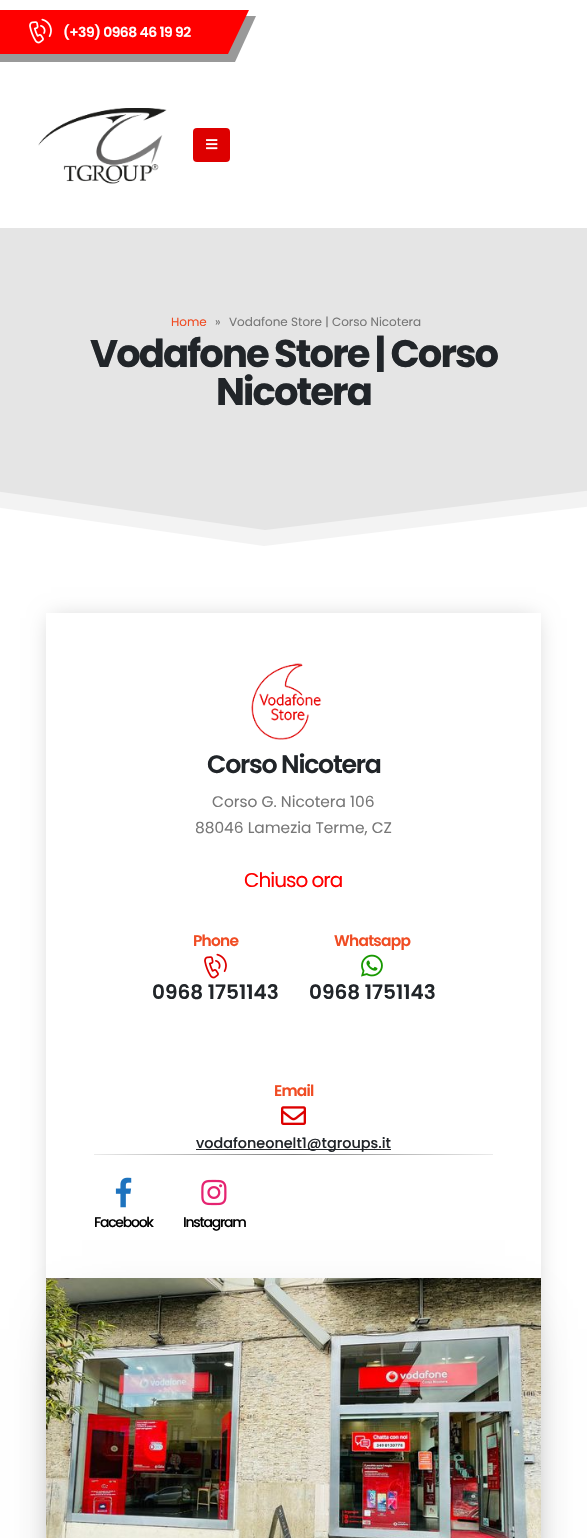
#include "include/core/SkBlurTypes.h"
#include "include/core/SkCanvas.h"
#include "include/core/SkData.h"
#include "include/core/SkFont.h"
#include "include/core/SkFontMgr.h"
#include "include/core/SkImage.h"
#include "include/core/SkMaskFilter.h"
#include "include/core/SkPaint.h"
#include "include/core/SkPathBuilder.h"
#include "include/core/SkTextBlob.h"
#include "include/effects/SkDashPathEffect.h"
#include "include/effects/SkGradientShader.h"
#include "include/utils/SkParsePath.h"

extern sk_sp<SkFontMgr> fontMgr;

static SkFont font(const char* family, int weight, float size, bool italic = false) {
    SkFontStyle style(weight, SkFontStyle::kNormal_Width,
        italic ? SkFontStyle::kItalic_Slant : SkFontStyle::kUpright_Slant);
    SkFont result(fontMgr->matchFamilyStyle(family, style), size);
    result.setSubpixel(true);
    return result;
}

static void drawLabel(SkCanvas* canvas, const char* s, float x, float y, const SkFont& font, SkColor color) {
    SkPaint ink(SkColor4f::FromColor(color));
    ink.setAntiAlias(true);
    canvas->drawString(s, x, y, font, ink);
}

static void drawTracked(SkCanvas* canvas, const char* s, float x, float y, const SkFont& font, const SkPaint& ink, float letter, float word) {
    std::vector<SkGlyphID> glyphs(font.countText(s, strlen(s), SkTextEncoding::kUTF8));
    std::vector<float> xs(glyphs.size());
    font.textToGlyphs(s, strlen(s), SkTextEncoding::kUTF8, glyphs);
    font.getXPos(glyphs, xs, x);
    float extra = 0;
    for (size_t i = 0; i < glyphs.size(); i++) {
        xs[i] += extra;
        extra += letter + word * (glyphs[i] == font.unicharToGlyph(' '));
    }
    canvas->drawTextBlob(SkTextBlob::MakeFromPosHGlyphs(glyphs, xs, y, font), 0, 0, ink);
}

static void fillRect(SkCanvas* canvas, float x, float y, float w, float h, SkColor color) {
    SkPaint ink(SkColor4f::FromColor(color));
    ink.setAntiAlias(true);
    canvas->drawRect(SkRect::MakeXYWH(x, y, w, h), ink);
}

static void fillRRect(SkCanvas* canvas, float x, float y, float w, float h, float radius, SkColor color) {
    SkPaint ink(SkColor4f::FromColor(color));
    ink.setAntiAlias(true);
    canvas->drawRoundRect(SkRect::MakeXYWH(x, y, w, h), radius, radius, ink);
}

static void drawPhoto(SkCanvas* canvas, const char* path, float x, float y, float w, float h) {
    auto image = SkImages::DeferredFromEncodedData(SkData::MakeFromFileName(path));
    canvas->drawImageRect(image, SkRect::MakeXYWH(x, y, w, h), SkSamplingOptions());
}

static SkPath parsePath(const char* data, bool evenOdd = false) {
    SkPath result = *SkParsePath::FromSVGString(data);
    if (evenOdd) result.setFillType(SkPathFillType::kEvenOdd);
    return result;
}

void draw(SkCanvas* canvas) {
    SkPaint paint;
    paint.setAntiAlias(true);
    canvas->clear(0xFFFFFFFF);
    paint.setColor(0xFF999999);
    canvas->drawPath(parsePath("M-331 16H256L235 62H-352Z"), paint);
    paint.setColor(0xFFFF0000);
    canvas->drawPath(parsePath("M-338 10H249L228 54H-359Z"), paint);
    drawPhoto(canvas, "assets/img1.png", 29, 18, 23, 26);
    SkFont font1 = font("Poppins", 600, 13.9f);
    paint.setColor(0xFFFFFFFF);
    drawTracked(canvas, "(+39) 0968 46 19 92", 63, 37, font1, paint, -0.5f, 0);
    drawPhoto(canvas, "assets/img2.png", 38, 108, 129, 76);
    fillRRect(canvas, 193, 128, 37, 34, 4, 0xFFDD0000);
    drawPhoto(canvas, "assets/img3.png", 206, 139, 12, 11);
    fillRect(canvas, 0, 228, 587, 302, 0xFFE5E5E5);
    SkFont font2 = font("Poppins", 400, 12);
    drawLabel(canvas, "Home", 171, 326, font2, 0xFFF04C23);
    drawLabel(canvas, "»", 215, 326, font2, 0xFF777777);
    drawLabel(canvas, "Vodafone Store | Corso Nicotera", 229, 326, font2, 0xFF777777);
    SkFont font3 = font("Poppins", 700, 38.5f);
    paint.setColor(0xFF212529);
    drawTracked(canvas, "Vodafone Store | Corso", 90, 367, font3, paint, -1.9f, 0);
    drawTracked(canvas, "Nicotera", 216, 405, font3, paint, -1.9f, 0);
    canvas->save();
    canvas->clipRect(SkRect::MakeXYWH(0, 443, 587, 122));
    paint.setColor(0xFFF3F3F3);
    canvas->drawPath(parsePath("M-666 475L-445 505L-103 477L265 530L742 472L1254 524V566H-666Z"), paint);
    paint.setColor(0xFFFFFFFF);
    canvas->drawPath(parsePath("M-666 490L-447 521L-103 493L264 546L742 488L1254 540V566H-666Z"), paint);
    canvas->restore();
    paint.setColor(0x33000000);
    paint.setMaskFilter(SkMaskFilter::MakeBlur(kNormal_SkBlurStyle, 10.5f));
    canvas->drawRect(SkRect::MakeXYWH(51, 618, 485, 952), paint);
    paint.setMaskFilter(nullptr);
    fillRect(canvas, 46, 613, 495, 665, 0xFFFFFFFF);
    drawPhoto(canvas, "assets/img4.png", 251, 663, 71, 77);
    SkFont font4 = font("Poppins", 600, 25.25f);
    paint.setColor(0xFF212529);
    drawTracked(canvas, "Corso Nicotera", 207, 773, font4, paint, -1.25f, 0);
    SkFont font5 = font("Poppins", 400, 15.4f);
    drawLabel(canvas, "Corso G. Nicotera 106", 212, 807, font5, 0xFF777777);
    drawLabel(canvas, "88046 Lamezia Terme, CZ", 195, 833, font5, 0xFF777777);
    SkFont font6 = font("Poppins", 400, 20);
    paint.setColor(0xFFFF0000);
    drawTracked(canvas, "Chiuso ora", 244, 887, font6, paint, -1, 0);
    SkFont font7 = font("Poppins", 600, 15.4f);
    paint.setColor(0xFFF04C23);
    drawTracked(canvas, "Phone", 193, 946, font7, paint, -0.75f, 0);
    drawPhoto(canvas, "assets/img5.png", 204, 953, 23, 26);
    SkFont font8 = font("Poppins", 600, 20);
    drawLabel(canvas, "0968 1751143", 152, 999, font8, 0xFF212529);
    drawTracked(canvas, "Whatsapp", 334, 946, font7, paint, -0.75f, 0);
    drawPhoto(canvas, "assets/img6.png", 361, 954, 22, 23);
    drawLabel(canvas, "0968 1751143", 309, 999, font8, 0xFF212529);
    drawTracked(canvas, "Email", 274, 1096, font7, paint, -0.75f, 0);
    drawPhoto(canvas, "assets/img7.png", 281, 1106, 25, 19);
    fillRect(canvas, 196, 1149, 195, 1, 0xFF212529);
    SkFont font9 = font("Poppins", 500, 14.4f);
    drawLabel(canvas, "vodafoneonelt1@tgroups.it", 196, 1148, font9, 0xFF212529);
    {
        const SkColor colors[] = {0xFFEBEBEB, 0xFF808080, 0xFFEBEBEB};
        const float stops[] = {0, 0.5f, 1};
        const SkPoint ends[] = {{94, 1155}, {493, 1155}};
        paint.setShader(SkGradientShader::MakeLinear(ends, colors, stops, 3, SkTileMode::kClamp));
        paint.setAlpha(255);
    }
    canvas->drawRect(SkRect::MakeXYWH(94, 1154, 399, 1), paint);
    drawPhoto(canvas, "assets/img8.png", 115, 1177, 17, 31);
    SkFont font10 = font("Poppins", 500, 14);
    paint.setShader(nullptr);
    paint.setColor(0xFF000000);
    drawTracked(canvas, "Facebook", 94, 1227, font10, paint, -1.25f, 0);
    drawPhoto(canvas, "assets/img9.png", 201, 1179, 26, 27);
    drawTracked(canvas, "Instagram", 183, 1227, font10, paint, -1.25f, 0);
    paint.setColor(0x73000000);
    paint.setMaskFilter(SkMaskFilter::MakeBlur(kNormal_SkBlurStyle, 30));
    canvas->drawRect(SkRect::MakeXYWH(82, 1329, 423, 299), paint);
    paint.setMaskFilter(nullptr);
    drawPhoto(canvas, "assets/img10.png", 46, 1278, 495, 260);
}
